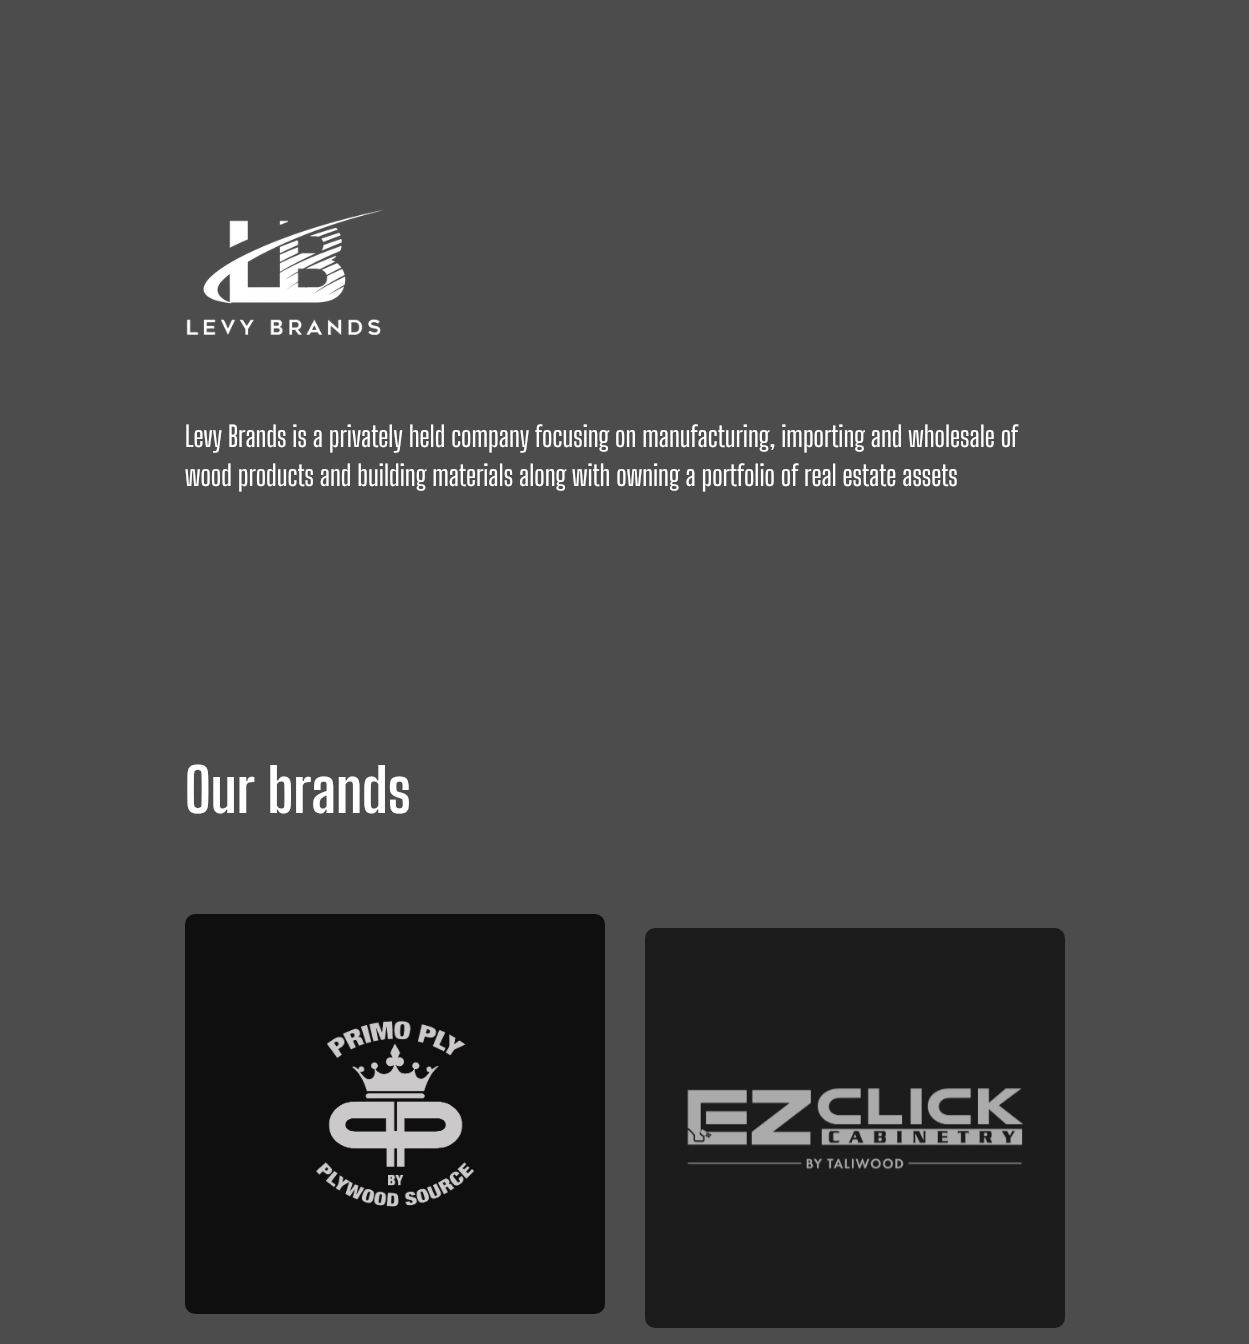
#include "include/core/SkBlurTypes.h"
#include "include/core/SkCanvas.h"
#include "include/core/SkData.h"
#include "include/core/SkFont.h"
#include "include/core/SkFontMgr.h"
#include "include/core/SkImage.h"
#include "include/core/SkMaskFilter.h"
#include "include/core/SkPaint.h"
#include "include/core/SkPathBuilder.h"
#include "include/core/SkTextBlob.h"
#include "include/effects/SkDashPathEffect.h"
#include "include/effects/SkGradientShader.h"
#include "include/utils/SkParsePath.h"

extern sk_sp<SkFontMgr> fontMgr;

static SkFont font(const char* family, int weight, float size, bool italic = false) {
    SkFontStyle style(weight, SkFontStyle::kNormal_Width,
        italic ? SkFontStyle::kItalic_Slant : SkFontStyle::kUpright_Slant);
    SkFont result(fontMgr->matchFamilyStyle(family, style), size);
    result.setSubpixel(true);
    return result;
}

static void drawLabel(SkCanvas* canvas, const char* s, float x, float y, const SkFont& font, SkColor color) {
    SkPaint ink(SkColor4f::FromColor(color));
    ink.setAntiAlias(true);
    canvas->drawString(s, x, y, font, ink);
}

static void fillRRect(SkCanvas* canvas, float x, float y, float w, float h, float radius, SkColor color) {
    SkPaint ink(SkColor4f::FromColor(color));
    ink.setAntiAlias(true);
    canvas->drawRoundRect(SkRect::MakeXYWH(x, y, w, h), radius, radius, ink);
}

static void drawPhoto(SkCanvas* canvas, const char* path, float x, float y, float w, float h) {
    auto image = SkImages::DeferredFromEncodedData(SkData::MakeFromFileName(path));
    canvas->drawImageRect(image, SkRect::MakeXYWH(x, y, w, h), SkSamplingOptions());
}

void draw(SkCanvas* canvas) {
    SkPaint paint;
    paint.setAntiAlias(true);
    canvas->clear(0xFF4C4C4C);
    drawPhoto(canvas, "assets/img1.png", 186, 209, 197, 127);
    SkFont font1 = font("Big Shoulders Display", 500, 28);
    drawLabel(canvas, "Levy Brands is a privately held company focusing on manufacturing, importing and wholesale of", 185, 447, font1, 0xFFFFFFFF);
    drawLabel(canvas, "wood products and building materials along with owning a portfolio of real estate assets", 185, 486, font1, 0xFFFFFFFF);
    SkFont font2 = font("Big Shoulders Display", 700, 60);
    drawLabel(canvas, "Our brands", 185, 813, font2, 0xFFFFFFFF);
    fillRRect(canvas, 185, 914, 420, 400, 10, 0xFF0F0F0F);
    drawPhoto(canvas, "assets/img2.png", 316, 1020, 158, 187);
    fillRRect(canvas, 645, 928, 420, 400, 10, 0xFF1C1C1C);
    drawPhoto(canvas, "assets/img3.png", 687, 1088, 336, 82);
}
